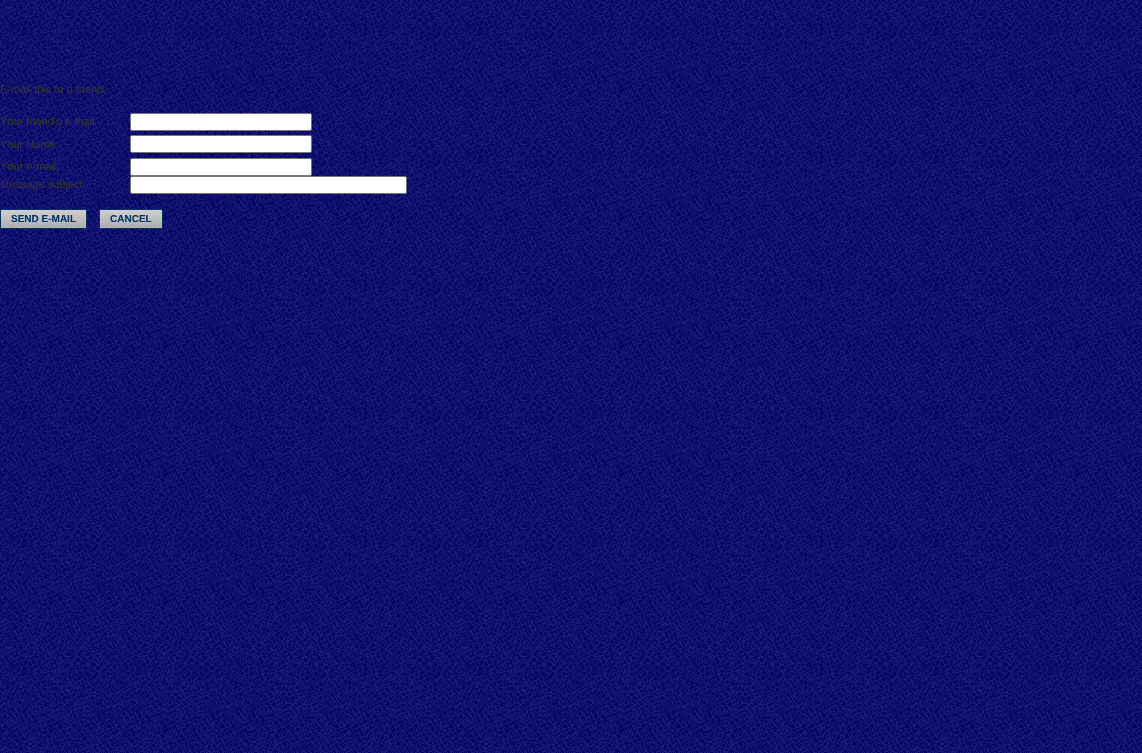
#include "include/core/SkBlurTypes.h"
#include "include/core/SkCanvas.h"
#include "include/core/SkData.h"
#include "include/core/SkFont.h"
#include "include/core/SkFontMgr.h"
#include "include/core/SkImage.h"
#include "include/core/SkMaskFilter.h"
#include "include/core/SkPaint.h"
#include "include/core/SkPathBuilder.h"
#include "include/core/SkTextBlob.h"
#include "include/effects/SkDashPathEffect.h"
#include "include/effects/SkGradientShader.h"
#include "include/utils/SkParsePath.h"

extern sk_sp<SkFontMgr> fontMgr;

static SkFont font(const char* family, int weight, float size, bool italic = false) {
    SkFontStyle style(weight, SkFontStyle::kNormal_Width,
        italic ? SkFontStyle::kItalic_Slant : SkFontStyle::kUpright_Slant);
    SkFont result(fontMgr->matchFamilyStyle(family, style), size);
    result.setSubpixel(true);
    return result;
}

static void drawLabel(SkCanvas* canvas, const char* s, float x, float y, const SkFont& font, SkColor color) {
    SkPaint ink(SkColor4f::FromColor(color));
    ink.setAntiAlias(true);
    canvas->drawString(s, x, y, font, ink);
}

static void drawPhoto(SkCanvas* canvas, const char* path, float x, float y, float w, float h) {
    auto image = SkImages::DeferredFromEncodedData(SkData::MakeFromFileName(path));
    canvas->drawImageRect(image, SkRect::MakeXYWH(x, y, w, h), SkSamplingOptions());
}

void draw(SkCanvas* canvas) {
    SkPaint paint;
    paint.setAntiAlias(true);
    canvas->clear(0xFFFFFFFF);
    drawPhoto(canvas, "assets/img1.png", 0, 0, 1142, 753);
    SkFont font1 = font("Liberation Sans", 400, 11);
    drawLabel(canvas, "E-mail this to a friend.", 0, 93, font1, 0xFF333333);
    drawLabel(canvas, "Your friend's e-mail:", 0, 125, font1, 0xFF333333);
    paint.setColor(0xFFFFFFFF);
    canvas->drawRoundRect(SkRect::MakeXYWH(130.5f, 113.5f, 181, 17), 1.5f, 1.5f, paint);
    paint.setStroke(true);
    paint.setStrokeWidth(1);
    paint.setColor(0xFF767676);
    canvas->drawRoundRect(SkRect::MakeXYWH(130.5f, 113.5f, 181, 17), 1.5f, 1.5f, paint);
    drawLabel(canvas, "Your Name:", 0, 148, font1, 0xFF333333);
    paint.setStroke(false);
    paint.setColor(0xFFFFFFFF);
    canvas->drawRoundRect(SkRect::MakeXYWH(130.5f, 135.5f, 181, 17), 1.5f, 1.5f, paint);
    paint.setStroke(true);
    paint.setColor(0xFF767676);
    canvas->drawRoundRect(SkRect::MakeXYWH(130.5f, 135.5f, 181, 17), 1.5f, 1.5f, paint);
    drawLabel(canvas, "Your e-mail:", 0, 170, font1, 0xFF333333);
    paint.setStroke(false);
    paint.setColor(0xFFFFFFFF);
    canvas->drawRoundRect(SkRect::MakeXYWH(130.5f, 158.5f, 181, 17), 1.5f, 1.5f, paint);
    paint.setStroke(true);
    paint.setColor(0xFF767676);
    canvas->drawRoundRect(SkRect::MakeXYWH(130.5f, 158.5f, 181, 17), 1.5f, 1.5f, paint);
    drawLabel(canvas, "Message subject:", 0, 188, font1, 0xFF333333);
    paint.setStroke(false);
    paint.setColor(0xFFFFFFFF);
    canvas->drawRoundRect(SkRect::MakeXYWH(130.5f, 176.5f, 276, 17), 1.5f, 1.5f, paint);
    paint.setStroke(true);
    paint.setColor(0xFF767676);
    canvas->drawRoundRect(SkRect::MakeXYWH(130.5f, 176.5f, 276, 17), 1.5f, 1.5f, paint);
    drawPhoto(canvas, "assets/img2.png", 1, 210, 85, 18);
    paint.setColor(0xFF003366);
    canvas->drawRect(SkRect::MakeXYWH(0.5f, 209.5f, 86, 19), paint);
    SkFont font2 = font("Liberation Sans", 700, 10);
    drawLabel(canvas, "SEND E-MAIL", 11, 222, font2, 0xFF003366);
    drawPhoto(canvas, "assets/img3.png", 100, 210, 62, 18);
    canvas->drawRect(SkRect::MakeXYWH(99.5f, 209.5f, 63, 19), paint);
    drawLabel(canvas, "CANCEL", 110, 222, font2, 0xFF003366);
}
